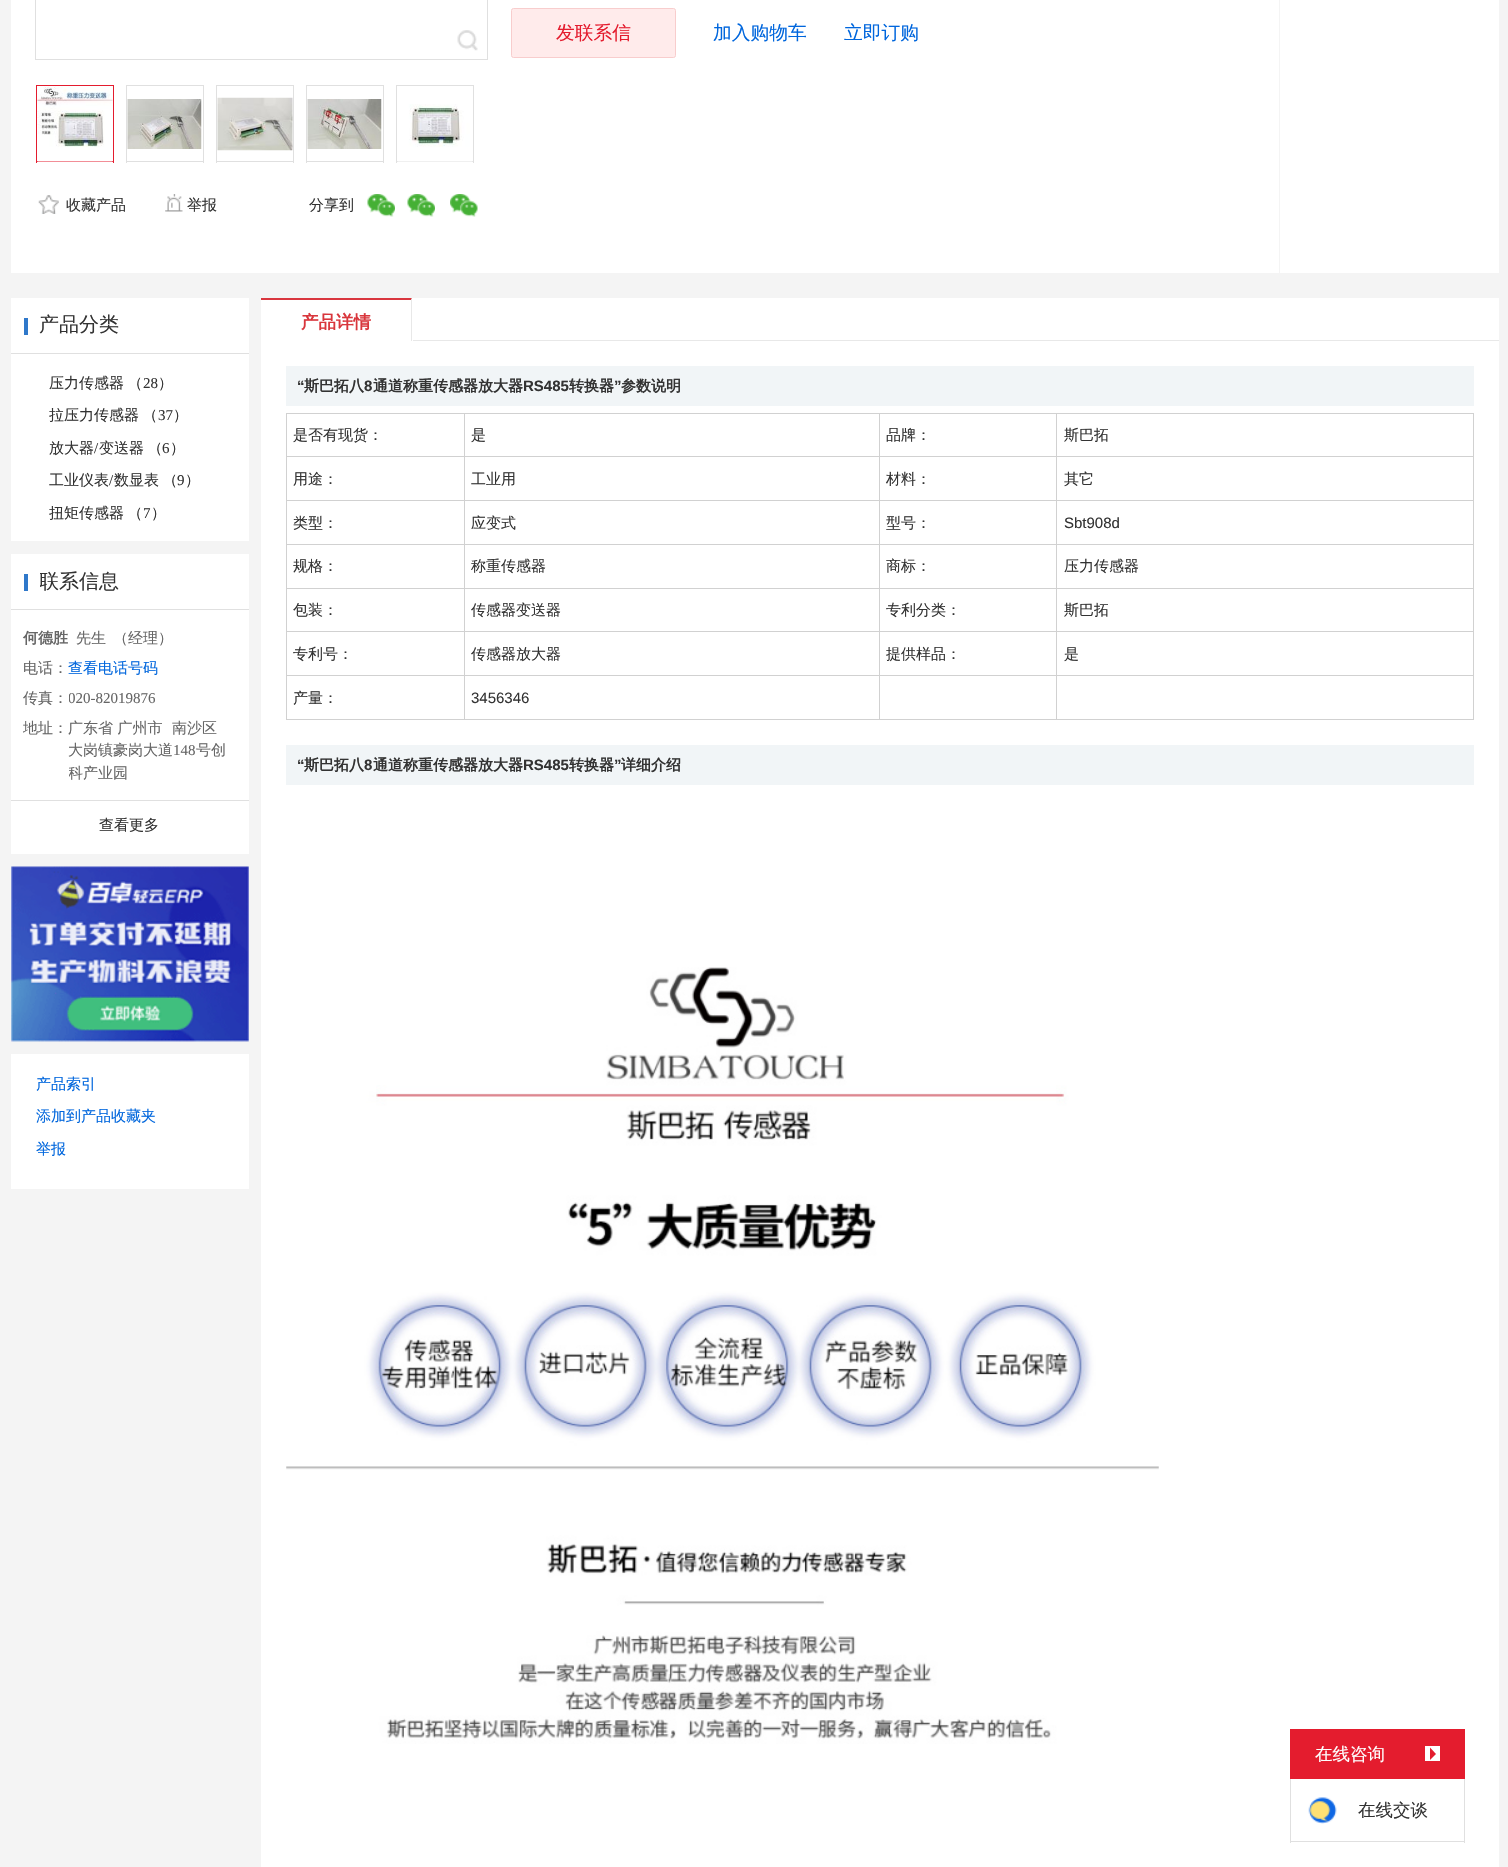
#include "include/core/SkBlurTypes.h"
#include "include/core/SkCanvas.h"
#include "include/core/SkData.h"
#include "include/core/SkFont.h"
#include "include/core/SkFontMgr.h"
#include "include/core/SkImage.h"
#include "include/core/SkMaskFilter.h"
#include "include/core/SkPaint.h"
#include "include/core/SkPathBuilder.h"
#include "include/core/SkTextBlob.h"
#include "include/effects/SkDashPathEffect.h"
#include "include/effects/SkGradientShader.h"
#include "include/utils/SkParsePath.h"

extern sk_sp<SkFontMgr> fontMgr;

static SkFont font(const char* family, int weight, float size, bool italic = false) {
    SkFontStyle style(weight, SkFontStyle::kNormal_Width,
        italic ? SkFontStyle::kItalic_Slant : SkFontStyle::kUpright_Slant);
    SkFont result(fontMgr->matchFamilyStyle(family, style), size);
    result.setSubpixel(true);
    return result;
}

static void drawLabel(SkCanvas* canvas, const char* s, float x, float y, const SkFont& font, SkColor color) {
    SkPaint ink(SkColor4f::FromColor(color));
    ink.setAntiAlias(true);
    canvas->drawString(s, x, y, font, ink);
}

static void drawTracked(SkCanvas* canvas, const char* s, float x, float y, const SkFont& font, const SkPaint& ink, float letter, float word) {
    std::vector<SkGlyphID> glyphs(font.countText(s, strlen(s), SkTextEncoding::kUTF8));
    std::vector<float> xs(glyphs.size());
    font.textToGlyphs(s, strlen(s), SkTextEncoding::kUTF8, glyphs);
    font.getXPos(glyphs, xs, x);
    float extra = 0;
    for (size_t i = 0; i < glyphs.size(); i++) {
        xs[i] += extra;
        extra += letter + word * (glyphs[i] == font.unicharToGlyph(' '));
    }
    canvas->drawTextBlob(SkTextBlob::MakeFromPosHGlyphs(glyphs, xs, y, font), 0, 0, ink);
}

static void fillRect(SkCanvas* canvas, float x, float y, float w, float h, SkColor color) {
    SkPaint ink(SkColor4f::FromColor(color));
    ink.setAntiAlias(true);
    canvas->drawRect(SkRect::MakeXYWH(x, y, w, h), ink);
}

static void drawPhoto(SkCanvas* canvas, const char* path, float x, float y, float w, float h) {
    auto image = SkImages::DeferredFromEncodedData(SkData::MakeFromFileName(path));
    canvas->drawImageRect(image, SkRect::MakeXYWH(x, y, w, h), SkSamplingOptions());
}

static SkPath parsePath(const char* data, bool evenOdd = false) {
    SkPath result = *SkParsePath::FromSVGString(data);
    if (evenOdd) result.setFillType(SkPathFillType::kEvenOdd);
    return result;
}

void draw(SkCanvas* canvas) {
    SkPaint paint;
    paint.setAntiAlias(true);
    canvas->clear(0xFFF4F4F4);
    fillRect(canvas, 11, 0, 1488, 273, 0xFFFFFFFF);
    paint.setColor(0xFFFFEBEB);
    canvas->drawRoundRect(SkRect::MakeXYWH(511.5f, 8.5f, 164, 49), 2, 2, paint);
    paint.setStroke(true);
    paint.setStrokeWidth(1);
    paint.setColor(0xFFF8CDCD);
    canvas->drawRoundRect(SkRect::MakeXYWH(511.5f, 8.5f, 164, 49), 2, 2, paint);
    SkFont font1 = font("WenQuanYi Zen Hei", 500, 18.75f);
    drawLabel(canvas, "发联系信", 556, 39, font1, 0xFFE41C2E);
    drawLabel(canvas, "加入购物车", 713, 39, font1, 0xFF0066DD);
    drawLabel(canvas, "立即订购", 844, 39, font1, 0xFF0066DD);
    fillRect(canvas, 1279, 0, 1, 273, 0xFFF4F4F4);
    paint.setColor(0xFFE0E0E0);
    canvas->drawRect(SkRect::MakeXYWH(35.5f, -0.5f, 452, 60), paint);
    drawPhoto(canvas, "assets/img1.png", 457, 30, 21, 21);
    fillRect(canvas, 36, 85, 78, 1, 0xFFE41C2E);
    fillRect(canvas, 113, 85, 1, 78, 0xFFE41C2E);
    fillRect(canvas, 36, 161, 78, 1, 0xFFE41C2E);
    fillRect(canvas, 36, 85, 1, 78, 0xFFE41C2E);
    drawPhoto(canvas, "assets/img2.png", 37, 86, 76, 76);
    fillRect(canvas, 126, 85, 78, 1, 0xFFE0E0E0);
    fillRect(canvas, 203, 85, 1, 78, 0xFFE0E0E0);
    fillRect(canvas, 126, 161, 78, 1, 0xFFE0E0E0);
    fillRect(canvas, 126, 85, 1, 78, 0xFFE0E0E0);
    drawPhoto(canvas, "assets/img3.png", 127, 99, 75, 50);
    fillRect(canvas, 216, 85, 78, 1, 0xFFE0E0E0);
    fillRect(canvas, 293, 85, 1, 78, 0xFFE0E0E0);
    fillRect(canvas, 216, 161, 78, 1, 0xFFE0E0E0);
    fillRect(canvas, 216, 85, 1, 78, 0xFFE0E0E0);
    drawPhoto(canvas, "assets/img4.png", 217, 97, 76, 54);
    fillRect(canvas, 306, 85, 78, 1, 0xFFE0E0E0);
    fillRect(canvas, 383, 85, 1, 78, 0xFFE0E0E0);
    fillRect(canvas, 306, 161, 78, 1, 0xFFE0E0E0);
    fillRect(canvas, 306, 85, 1, 78, 0xFFE0E0E0);
    drawPhoto(canvas, "assets/img5.png", 307, 99, 75, 50);
    fillRect(canvas, 396, 85, 78, 1, 0xFFE0E0E0);
    fillRect(canvas, 473, 85, 1, 78, 0xFFE0E0E0);
    fillRect(canvas, 396, 161, 78, 1, 0xFFE0E0E0);
    fillRect(canvas, 396, 85, 1, 78, 0xFFE0E0E0);
    drawPhoto(canvas, "assets/img6.png", 397, 104, 76, 58);
    drawPhoto(canvas, "assets/img7.png", 38, 195, 21, 19);
    SkFont font2 = font("WenQuanYi Zen Hei", 500, 15);
    drawLabel(canvas, "收藏产品", 66, 210, font2, 0xFF333333);
    drawPhoto(canvas, "assets/img8.png", 165, 194, 18, 18);
    drawLabel(canvas, "举报", 187, 210, font2, 0xFF333333);
    drawLabel(canvas, "分享到", 309, 210, font2, 0xFF333333);
    drawPhoto(canvas, "assets/img9.png", 367, 194, 28, 23);
    drawPhoto(canvas, "assets/img9.png", 407, 194, 28, 23);
    drawPhoto(canvas, "assets/img10.png", 450, 194, 28, 23);
    fillRect(canvas, 11, 298, 238, 243, 0xFFFFFFFF);
    fillRect(canvas, 11, 353, 238, 1, 0xFFE0E0E0);
    fillRect(canvas, 24, 318, 4, 17, 0xFF2F78CA);
    SkFont font3 = font("WenQuanYi Zen Hei", 500, 20);
    drawLabel(canvas, "产品分类", 39, 331, font3, 0xFF333333);
    paint.setStroke(false);
    paint.setColor(0xFF333333);
    drawTracked(canvas, "压力传感器 （", 49, 388, font2, paint, 0, -1);
    SkFont font4 = font("Liberation Serif", 400, 15);
    drawLabel(canvas, "28", 143, 388, font4, 0xFF333333);
    drawLabel(canvas, "）", 158, 388, font2, 0xFF333333);
    drawTracked(canvas, "拉压力传感器 （", 49, 420, font2, paint, 0, -1);
    drawLabel(canvas, "37", 158, 420, font4, 0xFF333333);
    drawLabel(canvas, "）", 173, 420, font2, 0xFF333333);
    drawLabel(canvas, "放大器", 49, 453, font2, 0xFF333333);
    drawLabel(canvas, "/", 94, 453, font4, 0xFF333333);
    drawTracked(canvas, "变送器 （", 99, 453, font2, paint, 0, -1);
    drawLabel(canvas, "6", 162, 453, font4, 0xFF333333);
    drawLabel(canvas, "）", 170, 453, font2, 0xFF333333);
    drawLabel(canvas, "工业仪表", 49, 485, font2, 0xFF333333);
    drawLabel(canvas, "/", 109, 485, font4, 0xFF333333);
    drawTracked(canvas, "数显表 （", 114, 485, font2, paint, 0, -1);
    drawLabel(canvas, "9", 177, 485, font4, 0xFF333333);
    drawLabel(canvas, "）", 185, 485, font2, 0xFF333333);
    drawTracked(canvas, "扭矩传感器 （", 49, 518, font2, paint, 0, -1);
    drawLabel(canvas, "7", 143, 518, font4, 0xFF333333);
    drawLabel(canvas, "）", 151, 518, font2, 0xFF333333);
    fillRect(canvas, 11, 554, 238, 300, 0xFFFFFFFF);
    fillRect(canvas, 11, 609, 238, 1, 0xFFE0E0E0);
    fillRect(canvas, 24, 574, 4, 17, 0xFF2F78CA);
    canvas->save();
    canvas->clipRect(SkRect::MakeXYWH(40, 554, 80, 55));
    drawLabel(canvas, "联系信息", 39, 588, font3, 0xFF333333);
    canvas->restore();
    SkFont font5 = font("WenQuanYi Zen Hei", 700, 15);
    drawLabel(canvas, "何德胜", 23, 643, font5, 0xFF666666);
    drawLabel(canvas, "先生", 76, 643, font2, 0xFF666666);
    drawLabel(canvas, "（经理）", 113, 643, font2, 0xFF666666);
    drawLabel(canvas, "电话：", 23, 673, font2, 0xFF666666);
    drawLabel(canvas, "查看电话号码", 68, 673, font2, 0xFF0066DD);
    drawLabel(canvas, "传真：", 23, 703, font2, 0xFF666666);
    canvas->save();
    canvas->clipRect(SkRect::MakeXYWH(69, 686, 167, 23));
    drawLabel(canvas, "020-82019876", 68, 703, font4, 0xFF666666);
    canvas->restore();
    drawLabel(canvas, "地址：", 23, 733, font2, 0xFF666666);
    drawLabel(canvas, "广东省 广州市", 68, 733, font2, 0xFF666666);
    drawLabel(canvas, "南沙区", 172, 733, font2, 0xFF666666);
    drawLabel(canvas, "大岗镇豪岗大道", 68, 755, font2, 0xFF666666);
    drawLabel(canvas, "148", 173, 755, font4, 0xFF666666);
    drawLabel(canvas, "号创", 196, 755, font2, 0xFF666666);
    canvas->save();
    canvas->clipRect(SkRect::MakeXYWH(69, 716, 167, 68));
    drawLabel(canvas, "科产业园", 68, 778, font2, 0xFF666666);
    canvas->restore();
    fillRect(canvas, 11, 800, 238, 1, 0xFFE0E0E0);
    drawLabel(canvas, "查看更多", 99, 830, font2, 0xFF333333);
    drawPhoto(canvas, "assets/img11.png", 11, 866, 238, 176);
    fillRect(canvas, 11, 1054, 238, 135, 0xFFFFFFFF);
    drawLabel(canvas, "产品索引", 36, 1089, font2, 0xFF0066DD);
    drawLabel(canvas, "添加到产品收藏夹", 36, 1121, font2, 0xFF0066DD);
    drawLabel(canvas, "举报", 36, 1154, font2, 0xFF0066DD);
    fillRect(canvas, 261, 298, 1238, 1569, 0xFFFFFFFF);
    fillRect(canvas, 413, 340, 1086, 1, 0xFFE8E8E8);
    paint.setColor(0xFFD9363E);
    canvas->drawPath(parsePath("M261 298H412L411 300H261Z"), paint);
    paint.setColor(0xFFE8E8E8);
    canvas->drawPath(parsePath("M412 298V341H411V300Z"), paint);
    SkFont font6 = font("WenQuanYi Zen Hei", 700, 17.5f);
    drawLabel(canvas, "产品详情", 301, 328, font6, 0xFFD9363C);
    fillRect(canvas, 286, 366, 1188, 40, 0xFFF1F5F7);
    SkFont font7 = font("Liberation Sans", 700, 15);
    drawLabel(canvas, "“", 297, 391, font7, 0xFF333333);
    drawLabel(canvas, "斯巴拓八", 304, 391, font5, 0xFF333333);
    drawLabel(canvas, "8", 364, 391, font7, 0xFF333333);
    drawLabel(canvas, "通道称重传感器放大器", 373, 391, font5, 0xFF333333);
    drawLabel(canvas, "RS485", 523, 391, font7, 0xFF333333);
    drawLabel(canvas, "转换器", 569, 391, font5, 0xFF333333);
    drawLabel(canvas, "”", 614, 391, font7, 0xFF333333);
    drawLabel(canvas, "参数说明", 621, 391, font5, 0xFF333333);
    fillRect(canvas, 286, 413, 1188, 1, 0xFFD1D1D1);
    fillRect(canvas, 286, 413, 1, 307, 0xFFD1D1D1);
    fillRect(canvas, 1473, 413, 1, 307, 0xFFD1D1D1);
    fillRect(canvas, 1056, 719, 418, 1, 0xFFD1D1D1);
    fillRect(canvas, 1056, 675, 1, 45, 0xFFD1D1D1);
    fillRect(canvas, 1056, 675, 418, 1, 0xFFD1D1D1);
    fillRect(canvas, 1056, 631, 1, 45, 0xFFD1D1D1);
    fillRect(canvas, 1056, 631, 418, 1, 0xFFD1D1D1);
    fillRect(canvas, 1056, 588, 1, 45, 0xFFD1D1D1);
    fillRect(canvas, 1056, 588, 418, 1, 0xFFD1D1D1);
    fillRect(canvas, 1056, 544, 1, 45, 0xFFD1D1D1);
    fillRect(canvas, 1056, 544, 418, 1, 0xFFD1D1D1);
    fillRect(canvas, 1056, 500, 1, 45, 0xFFD1D1D1);
    fillRect(canvas, 1056, 500, 418, 1, 0xFFD1D1D1);
    fillRect(canvas, 1056, 456, 1, 45, 0xFFD1D1D1);
    fillRect(canvas, 1056, 456, 418, 1, 0xFFD1D1D1);
    fillRect(canvas, 1056, 413, 1, 45, 0xFFD1D1D1);
    fillRect(canvas, 879, 719, 179, 1, 0xFFD1D1D1);
    fillRect(canvas, 879, 675, 1, 45, 0xFFD1D1D1);
    fillRect(canvas, 879, 675, 179, 1, 0xFFD1D1D1);
    fillRect(canvas, 879, 631, 1, 45, 0xFFD1D1D1);
    fillRect(canvas, 879, 631, 179, 1, 0xFFD1D1D1);
    fillRect(canvas, 879, 588, 1, 45, 0xFFD1D1D1);
    fillRect(canvas, 879, 588, 179, 1, 0xFFD1D1D1);
    fillRect(canvas, 879, 544, 1, 45, 0xFFD1D1D1);
    fillRect(canvas, 879, 544, 179, 1, 0xFFD1D1D1);
    fillRect(canvas, 879, 500, 1, 45, 0xFFD1D1D1);
    fillRect(canvas, 879, 500, 179, 1, 0xFFD1D1D1);
    fillRect(canvas, 879, 456, 1, 45, 0xFFD1D1D1);
    fillRect(canvas, 879, 456, 179, 1, 0xFFD1D1D1);
    fillRect(canvas, 879, 413, 1, 45, 0xFFD1D1D1);
    fillRect(canvas, 464, 719, 416, 1, 0xFFD1D1D1);
    fillRect(canvas, 464, 675, 1, 45, 0xFFD1D1D1);
    fillRect(canvas, 464, 675, 416, 1, 0xFFD1D1D1);
    fillRect(canvas, 464, 631, 1, 45, 0xFFD1D1D1);
    fillRect(canvas, 464, 631, 416, 1, 0xFFD1D1D1);
    fillRect(canvas, 464, 588, 1, 45, 0xFFD1D1D1);
    fillRect(canvas, 464, 588, 416, 1, 0xFFD1D1D1);
    fillRect(canvas, 464, 544, 1, 45, 0xFFD1D1D1);
    fillRect(canvas, 464, 544, 416, 1, 0xFFD1D1D1);
    fillRect(canvas, 464, 500, 1, 45, 0xFFD1D1D1);
    fillRect(canvas, 464, 500, 416, 1, 0xFFD1D1D1);
    fillRect(canvas, 464, 456, 1, 45, 0xFFD1D1D1);
    fillRect(canvas, 464, 456, 416, 1, 0xFFD1D1D1);
    fillRect(canvas, 464, 413, 1, 45, 0xFFD1D1D1);
    fillRect(canvas, 286, 456, 179, 1, 0xFFD1D1D1);
    drawLabel(canvas, "是否有现货：", 293, 440, font2, 0xFF333333);
    drawLabel(canvas, "是", 471, 440, font2, 0xFF333333);
    drawLabel(canvas, "品牌：", 886, 440, font2, 0xFF333333);
    drawLabel(canvas, "斯巴拓", 1064, 440, font2, 0xFF333333);
    fillRect(canvas, 286, 500, 179, 1, 0xFFD1D1D1);
    drawLabel(canvas, "用途：", 293, 484, font2, 0xFF333333);
    drawLabel(canvas, "工业用", 471, 484, font2, 0xFF333333);
    drawLabel(canvas, "材料：", 886, 484, font2, 0xFF333333);
    drawLabel(canvas, "其它", 1064, 484, font2, 0xFF333333);
    fillRect(canvas, 286, 544, 179, 1, 0xFFD1D1D1);
    drawLabel(canvas, "类型：", 293, 528, font2, 0xFF333333);
    drawLabel(canvas, "应变式", 471, 528, font2, 0xFF333333);
    drawLabel(canvas, "型号：", 886, 528, font2, 0xFF333333);
    SkFont font8 = font("Liberation Sans", 400, 15);
    drawLabel(canvas, "Sbt908d", 1064, 528, font8, 0xFF333333);
    fillRect(canvas, 286, 588, 179, 1, 0xFFD1D1D1);
    drawLabel(canvas, "规格：", 293, 571, font2, 0xFF333333);
    drawLabel(canvas, "称重传感器", 471, 571, font2, 0xFF333333);
    drawLabel(canvas, "商标：", 886, 571, font2, 0xFF333333);
    drawLabel(canvas, "压力传感器", 1064, 571, font2, 0xFF333333);
    fillRect(canvas, 286, 631, 179, 1, 0xFFD1D1D1);
    drawLabel(canvas, "包装：", 293, 615, font2, 0xFF333333);
    drawLabel(canvas, "传感器变送器", 471, 615, font2, 0xFF333333);
    drawLabel(canvas, "专利分类：", 886, 615, font2, 0xFF333333);
    drawLabel(canvas, "斯巴拓", 1064, 615, font2, 0xFF333333);
    fillRect(canvas, 286, 675, 179, 1, 0xFFD1D1D1);
    drawLabel(canvas, "专利号：", 293, 659, font2, 0xFF333333);
    drawLabel(canvas, "传感器放大器", 471, 659, font2, 0xFF333333);
    drawLabel(canvas, "提供样品：", 886, 659, font2, 0xFF333333);
    drawLabel(canvas, "是", 1064, 659, font2, 0xFF333333);
    fillRect(canvas, 286, 719, 179, 1, 0xFFD1D1D1);
    drawLabel(canvas, "产量：", 293, 703, font2, 0xFF333333);
    drawLabel(canvas, "3456346", 471, 703, font8, 0xFF333333);
    fillRect(canvas, 286, 745, 1188, 40, 0xFFF1F5F7);
    drawLabel(canvas, "“", 297, 770, font7, 0xFF333333);
    drawLabel(canvas, "斯巴拓八", 304, 770, font5, 0xFF333333);
    drawLabel(canvas, "8", 364, 770, font7, 0xFF333333);
    drawLabel(canvas, "通道称重传感器放大器", 373, 770, font5, 0xFF333333);
    drawLabel(canvas, "RS485", 523, 770, font7, 0xFF333333);
    drawLabel(canvas, "转换器", 569, 770, font5, 0xFF333333);
    drawLabel(canvas, "”", 614, 770, font7, 0xFF333333);
    drawLabel(canvas, "详细介绍", 621, 770, font5, 0xFF333333);
    drawPhoto(canvas, "assets/img12.png", 286, 967, 873, 777);
    fillRect(canvas, 1290, 1729, 175, 50, 0xFFE41C2E);
    SkFont font9 = font("WenQuanYi Zen Hei", 500, 17.5f);
    drawLabel(canvas, "在线咨询", 1315, 1760, font9, 0xFFFFFFFF);
    fillRect(canvas, 1425, 1746, 15, 15, 0xFFFFFFFF);
    paint.setColor(0xFFE41C2E);
    canvas->drawPath(parsePath("M1430 1760V1747.5L1436 1754Z"), paint);
    fillRect(canvas, 1464, 1779, 1, 64, 0xFFE0E0E0);
    fillRect(canvas, 1290, 1841, 175, 1, 0xFFE0E0E0);
    fillRect(canvas, 1290, 1779, 1, 64, 0xFFE0E0E0);
    drawPhoto(canvas, "assets/img13.png", 1308, 1797, 29, 27);
    drawLabel(canvas, "在线交谈", 1358, 1816, font9, 0xFF333333);
}
